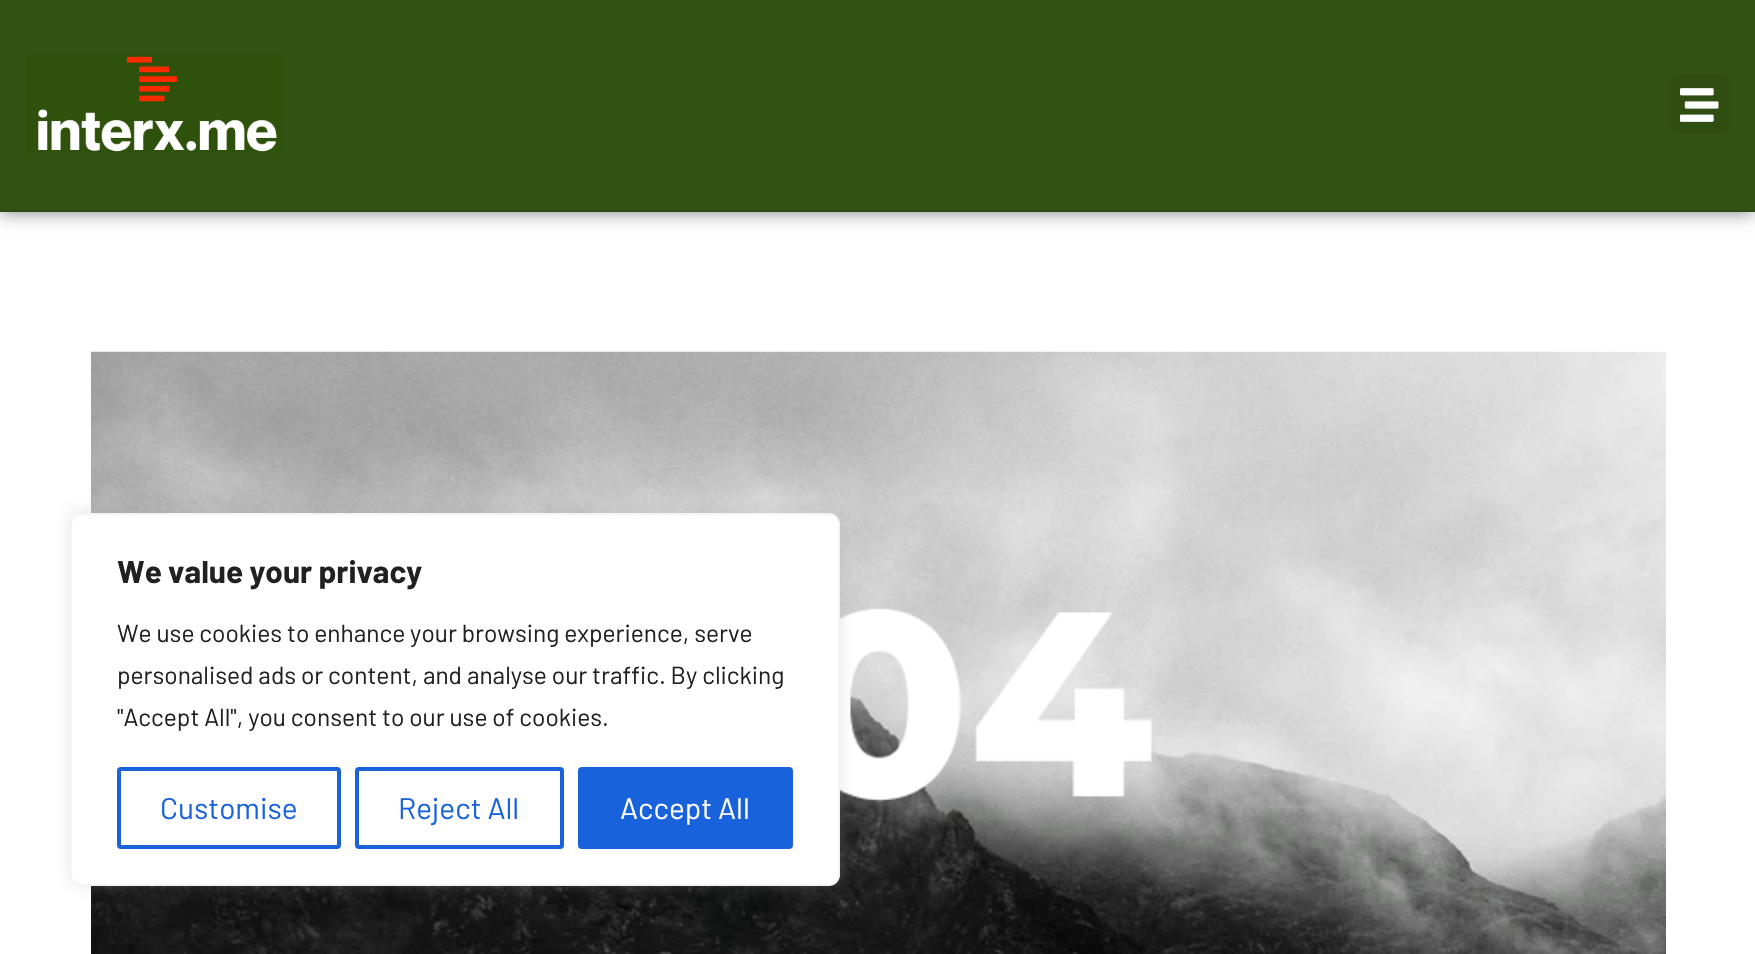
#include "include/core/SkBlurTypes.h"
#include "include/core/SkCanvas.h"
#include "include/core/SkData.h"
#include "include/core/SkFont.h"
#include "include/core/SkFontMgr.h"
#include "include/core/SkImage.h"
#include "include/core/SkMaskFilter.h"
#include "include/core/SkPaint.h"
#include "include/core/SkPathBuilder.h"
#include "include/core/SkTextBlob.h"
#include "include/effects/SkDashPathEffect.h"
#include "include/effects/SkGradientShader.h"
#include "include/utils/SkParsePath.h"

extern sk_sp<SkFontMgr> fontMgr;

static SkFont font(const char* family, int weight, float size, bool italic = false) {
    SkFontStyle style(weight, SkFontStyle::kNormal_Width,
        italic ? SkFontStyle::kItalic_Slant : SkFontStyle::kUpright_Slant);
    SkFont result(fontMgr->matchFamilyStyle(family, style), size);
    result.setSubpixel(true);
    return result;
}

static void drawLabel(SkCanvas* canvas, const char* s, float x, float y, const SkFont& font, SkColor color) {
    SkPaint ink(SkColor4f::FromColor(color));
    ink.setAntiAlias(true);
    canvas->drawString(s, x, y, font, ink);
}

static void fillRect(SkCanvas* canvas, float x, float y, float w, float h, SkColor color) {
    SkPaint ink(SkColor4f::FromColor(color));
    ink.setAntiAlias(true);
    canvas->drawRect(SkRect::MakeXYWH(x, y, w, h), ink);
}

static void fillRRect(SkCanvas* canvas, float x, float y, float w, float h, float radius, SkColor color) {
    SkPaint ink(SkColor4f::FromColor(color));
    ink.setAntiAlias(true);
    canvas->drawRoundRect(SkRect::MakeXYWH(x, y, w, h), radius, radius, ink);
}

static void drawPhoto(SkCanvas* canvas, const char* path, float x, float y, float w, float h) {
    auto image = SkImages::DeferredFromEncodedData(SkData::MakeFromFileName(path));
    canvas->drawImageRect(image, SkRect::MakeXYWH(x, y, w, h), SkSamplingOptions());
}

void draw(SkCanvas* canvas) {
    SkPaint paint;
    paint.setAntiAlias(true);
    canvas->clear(0xFFFFFFFF);
    paint.setColor(0x80000000);
    paint.setMaskFilter(SkMaskFilter::MakeBlur(kNormal_SkBlurStyle, 9));
    canvas->drawRect(SkRect::MakeXYWH(0, 0, 1755, 212), paint);
    paint.setMaskFilter(nullptr);
    fillRect(canvas, 0, 0, 1755, 210, 0xFF325213);
    fillRect(canvas, 0, 210, 1755, 2, 0xFF2D4A11);
    drawPhoto(canvas, "assets/img1.png", 26, 54, 256, 102);
    fillRRect(canvas, 1671, 75, 58, 58, 5, 0xFF304E12);
    drawPhoto(canvas, "assets/img2.png", 1680, 88, 39, 34);
    drawPhoto(canvas, "assets/img3.png", 91, 351, 1575, 603);
    paint.setColor(0x4DACABAB);
    paint.setMaskFilter(SkMaskFilter::MakeBlur(kNormal_SkBlurStyle, 9));
    canvas->drawRoundRect(SkRect::MakeXYWH(70, 511, 770, 373), 11, 11, paint);
    paint.setMaskFilter(nullptr);
    paint.setColor(0xFFFFFFFF);
    canvas->drawRoundRect(SkRect::MakeXYWH(71, 514, 768, 371), 10, 10, paint);
    paint.setStroke(true);
    paint.setStrokeWidth(2);
    paint.setColor(0xFFF4F4F4);
    canvas->drawRoundRect(SkRect::MakeXYWH(71, 514, 768, 371), 10, 10, paint);
    SkFont font1 = font("Barlow", 700, 31.5f);
    drawLabel(canvas, "We value your privacy", 117, 583, font1, 0xFF212121);
    SkFont font2 = font("Barlow", 400, 24.5f);
    drawLabel(canvas, "We use cookies to enhance your browsing experience, serve", 117, 642, font2, 0xFF212121);
    drawLabel(canvas, "personalised ads or content, and analyse our traffic. By clicking", 117, 684, font2, 0xFF212121);
    drawLabel(canvas, "\"Accept All\", you consent to our use of cookies.", 117, 726, font2, 0xFF212121);
    paint.setStrokeWidth(4);
    paint.setColor(0xFF1863DC);
    canvas->drawRoundRect(SkRect::MakeXYWH(119, 769, 220, 78), 2, 2, paint);
    SkFont font3 = font("Barlow", 400, 29.75f);
    drawLabel(canvas, "Customise", 160, 819, font3, 0xFF1863DC);
    canvas->drawRoundRect(SkRect::MakeXYWH(357, 769, 205, 78), 2, 2, paint);
    drawLabel(canvas, "Reject All", 398, 819, font3, 0xFF1863DC);
    paint.setStroke(false);
    canvas->drawRoundRect(SkRect::MakeXYWH(580, 769, 211, 78), 2, 2, paint);
    paint.setStroke(true);
    canvas->drawRoundRect(SkRect::MakeXYWH(580, 769, 211, 78), 2, 2, paint);
    drawLabel(canvas, "Accept All", 620, 819, font3, 0xFFFFFFFF);
}
